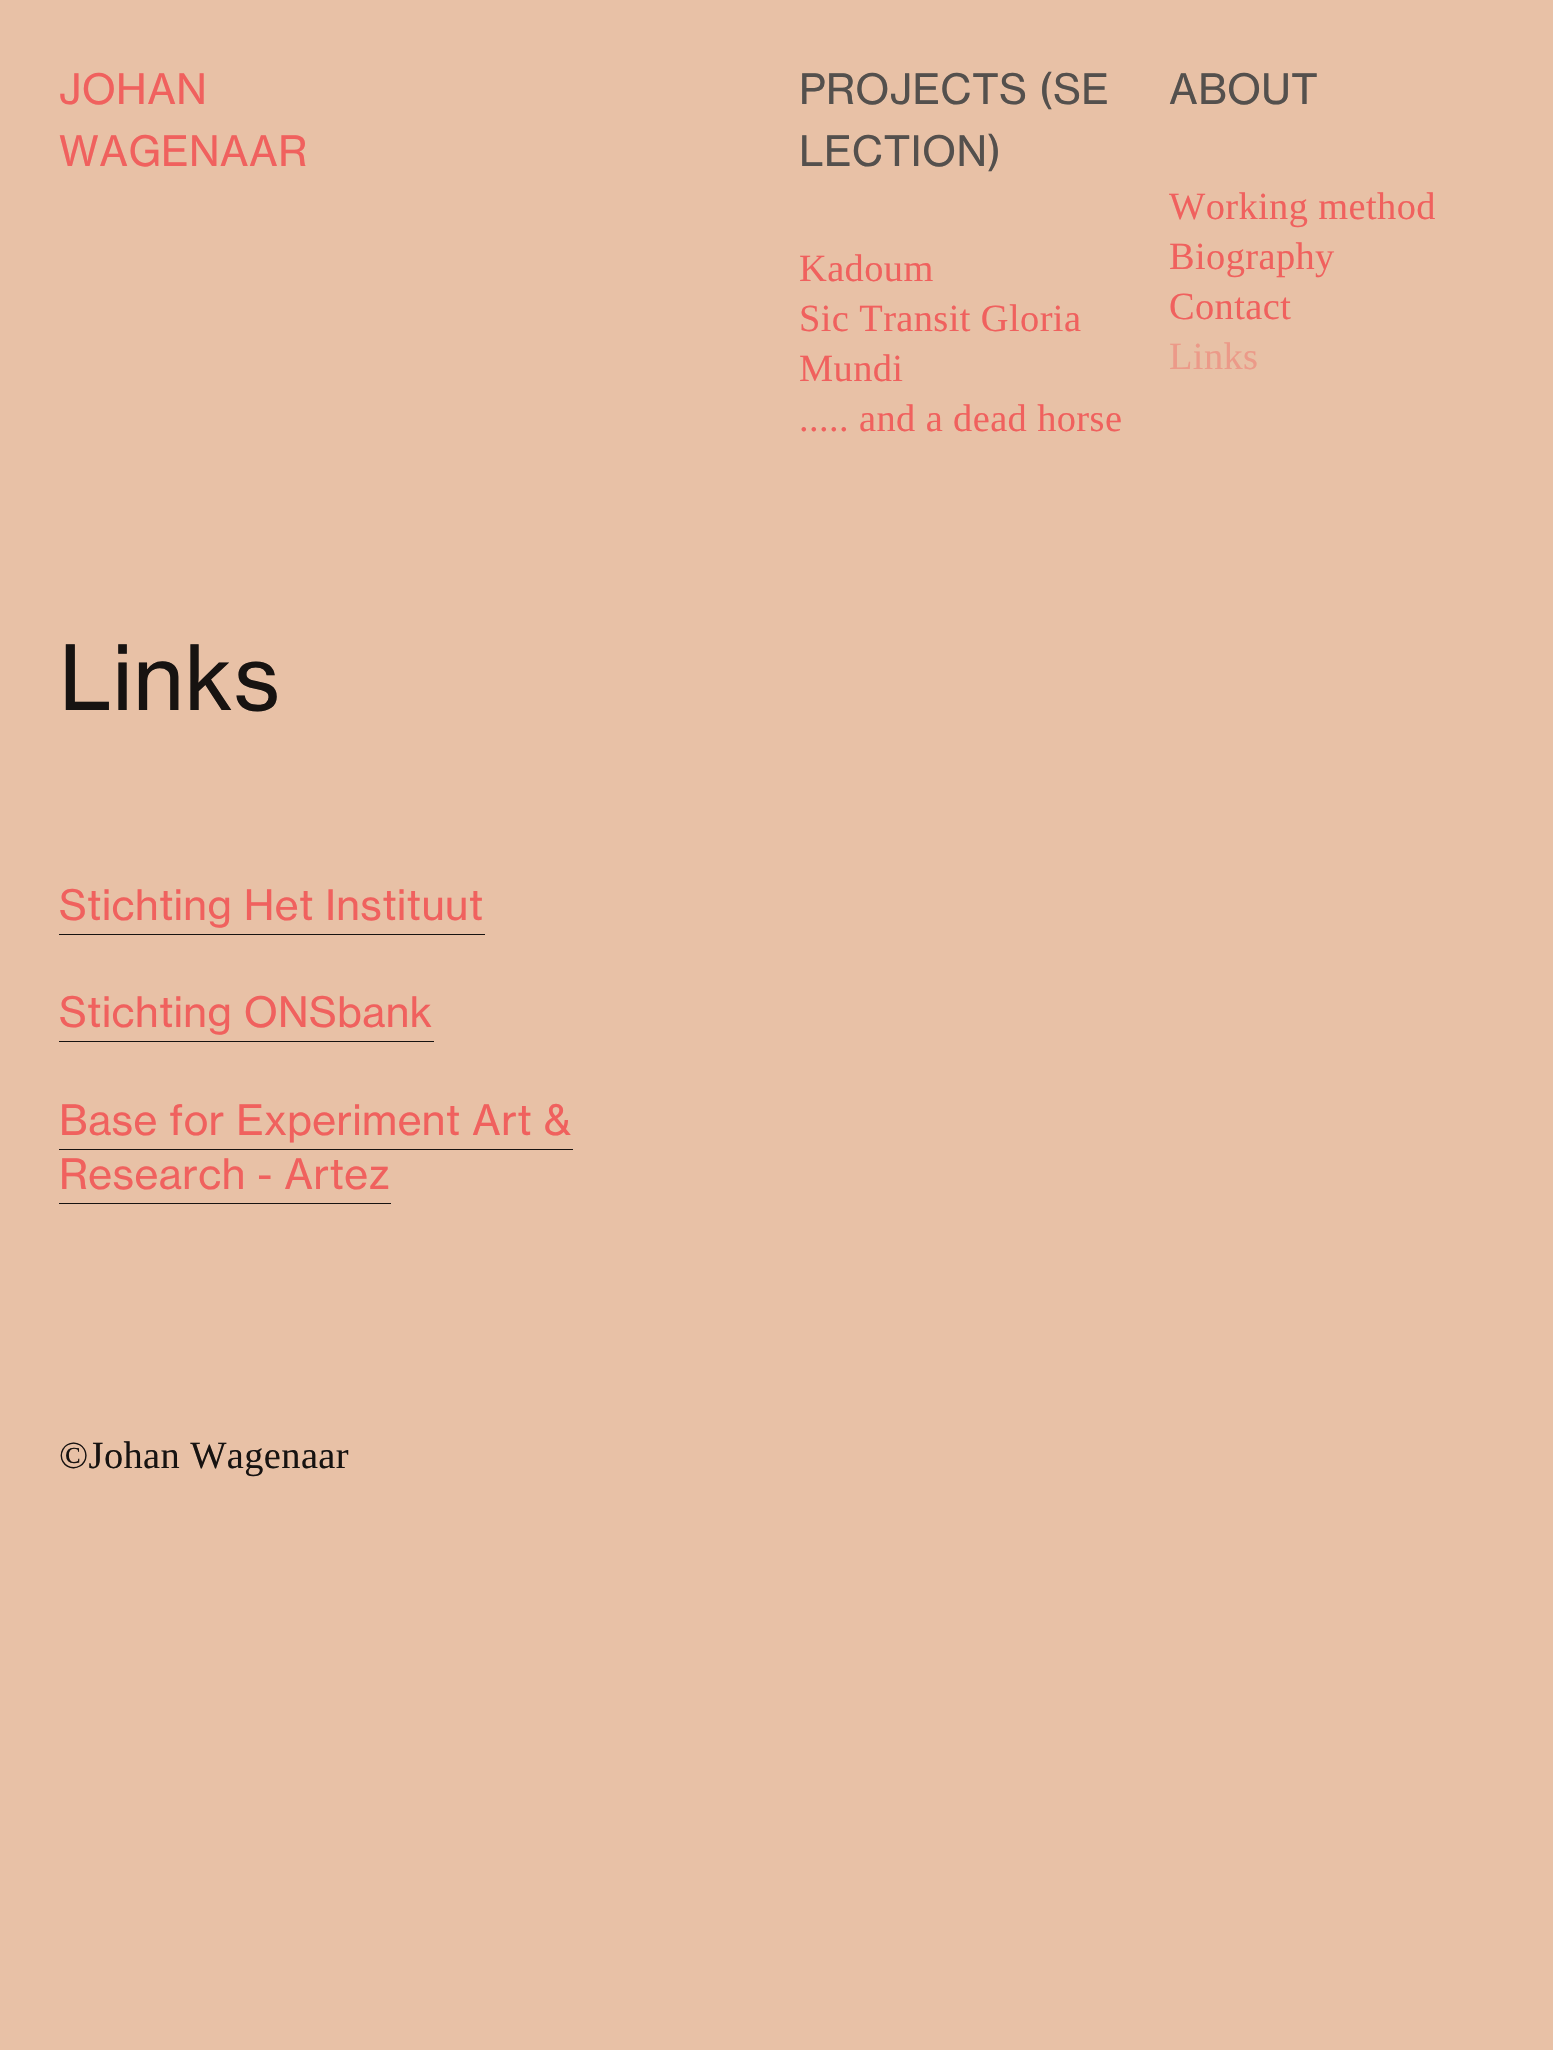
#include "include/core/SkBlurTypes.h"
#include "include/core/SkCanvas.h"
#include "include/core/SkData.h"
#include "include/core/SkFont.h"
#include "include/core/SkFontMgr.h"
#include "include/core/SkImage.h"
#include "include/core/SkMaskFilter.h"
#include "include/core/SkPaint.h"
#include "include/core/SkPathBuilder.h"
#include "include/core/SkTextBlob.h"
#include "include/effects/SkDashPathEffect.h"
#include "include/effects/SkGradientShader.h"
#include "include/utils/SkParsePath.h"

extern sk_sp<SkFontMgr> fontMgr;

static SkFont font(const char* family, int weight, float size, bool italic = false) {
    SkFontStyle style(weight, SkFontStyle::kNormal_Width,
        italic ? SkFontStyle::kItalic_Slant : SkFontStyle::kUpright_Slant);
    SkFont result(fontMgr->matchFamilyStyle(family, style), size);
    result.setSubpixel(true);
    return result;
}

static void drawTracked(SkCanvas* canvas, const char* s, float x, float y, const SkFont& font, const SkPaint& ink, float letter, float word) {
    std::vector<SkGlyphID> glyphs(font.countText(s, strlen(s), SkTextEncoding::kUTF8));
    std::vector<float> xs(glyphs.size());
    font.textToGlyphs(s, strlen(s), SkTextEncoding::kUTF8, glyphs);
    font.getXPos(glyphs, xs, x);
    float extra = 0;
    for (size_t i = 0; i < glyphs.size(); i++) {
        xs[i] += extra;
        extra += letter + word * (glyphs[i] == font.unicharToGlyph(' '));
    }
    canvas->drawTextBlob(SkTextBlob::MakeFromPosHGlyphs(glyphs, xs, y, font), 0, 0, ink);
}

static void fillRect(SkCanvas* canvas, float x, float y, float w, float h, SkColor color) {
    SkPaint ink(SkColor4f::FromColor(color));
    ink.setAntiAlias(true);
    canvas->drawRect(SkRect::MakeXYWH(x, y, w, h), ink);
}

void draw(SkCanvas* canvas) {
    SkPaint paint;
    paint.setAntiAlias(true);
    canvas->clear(0xFFE8C1A6);
    SkFont font1 = font("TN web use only", 400, 41.25f);
    paint.setColor(0xFFF0615E);
    drawTracked(canvas, "JOHAN", 59, 104, font1, paint, 0.4f, 0);
    drawTracked(canvas, "WAGENAAR", 59, 166, font1, paint, 0.4f, 0);
    paint.setColor(0xFF54504D);
    drawTracked(canvas, "PROJECTS (SE", 799, 104, font1, paint, 0.4f, 0);
    drawTracked(canvas, "LECTION)", 799, 166, font1, paint, 0.4f, 0);
    SkFont font2 = font("Liberation Serif", 400, 38.4f);
    paint.setColor(0xFFF0615E);
    drawTracked(canvas, "Kadoum", 799, 281, font2, paint, 0.4f, 0);
    drawTracked(canvas, "Sic Transit Gloria", 799, 331, font2, paint, 0.4f, 0);
    drawTracked(canvas, "Mundi", 799, 381, font2, paint, 0.4f, 0);
    drawTracked(canvas, "..... and a dead horse", 799, 431, font2, paint, 0.4f, 0);
    paint.setColor(0xFF54504D);
    drawTracked(canvas, "ABOUT", 1169, 104, font1, paint, 0.4f, 0);
    paint.setColor(0xFFF0615E);
    drawTracked(canvas, "Working method", 1169, 219, font2, paint, 0.4f, 0);
    drawTracked(canvas, "Biography", 1169, 269, font2, paint, 0.4f, 0);
    drawTracked(canvas, "Contact", 1169, 319, font2, paint, 0.4f, 0);
    paint.setColor(0xFFEC9A89);
    drawTracked(canvas, "Links", 1169, 369, font2, paint, 0.4f, 0);
    SkFont font3 = font("TN web use only", 400, 88.5f);
    paint.setColor(0xFF171311);
    drawTracked(canvas, "Links", 59, 710, font3, paint, 1, 0);
    paint.setColor(0xFFF0615E);
    drawTracked(canvas, "Stichting Het Instituut", 59, 920, font1, paint, 0.4f, 0);
    fillRect(canvas, 59, 934, 426, 1, 0xFF171311);
    drawTracked(canvas, "Stichting ONSbank", 59, 1027, font1, paint, 0.4f, 0);
    fillRect(canvas, 59, 1041, 375, 1, 0xFF171311);
    drawTracked(canvas, "Base for Experiment Art &", 59, 1135, font1, paint, 0.4f, 0);
    drawTracked(canvas, "Research - Artez", 59, 1189, font1, paint, 0.4f, 0);
    fillRect(canvas, 59, 1149, 514, 1, 0xFF171311);
    fillRect(canvas, 59, 1203, 332, 1, 0xFF171311);
    paint.setColor(0xFF171311);
    drawTracked(canvas, "©Johan Wagenaar", 59, 1468, font2, paint, 0.4f, 0);
}
